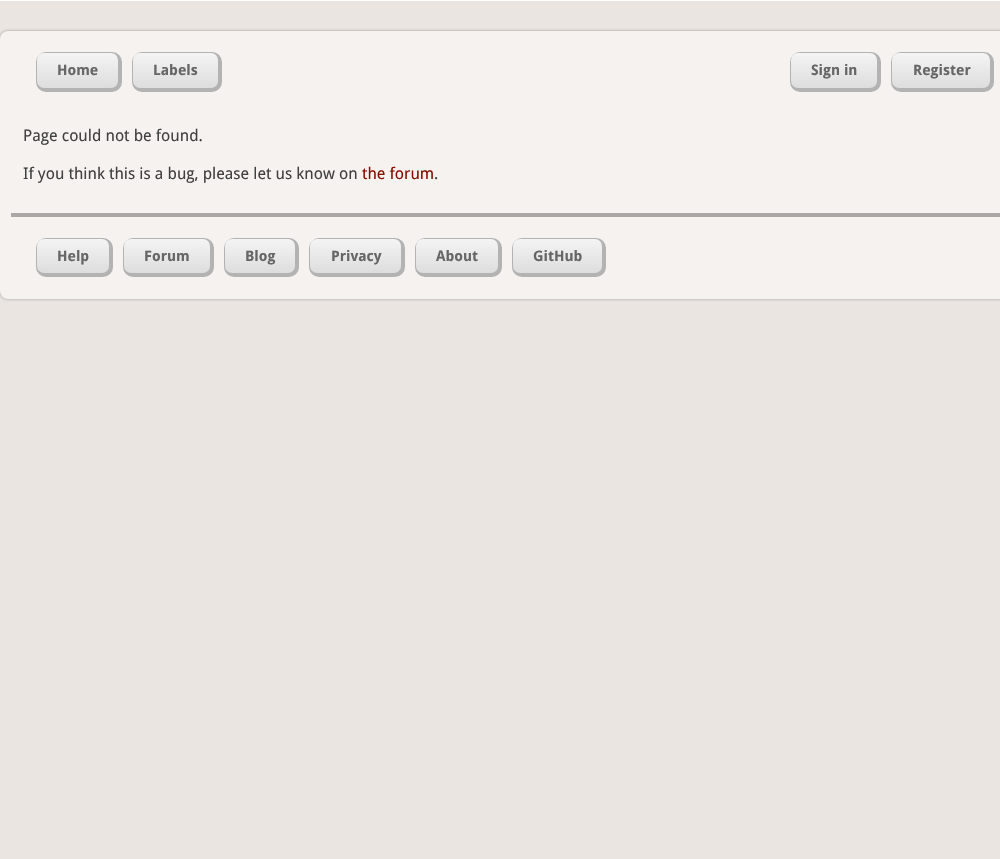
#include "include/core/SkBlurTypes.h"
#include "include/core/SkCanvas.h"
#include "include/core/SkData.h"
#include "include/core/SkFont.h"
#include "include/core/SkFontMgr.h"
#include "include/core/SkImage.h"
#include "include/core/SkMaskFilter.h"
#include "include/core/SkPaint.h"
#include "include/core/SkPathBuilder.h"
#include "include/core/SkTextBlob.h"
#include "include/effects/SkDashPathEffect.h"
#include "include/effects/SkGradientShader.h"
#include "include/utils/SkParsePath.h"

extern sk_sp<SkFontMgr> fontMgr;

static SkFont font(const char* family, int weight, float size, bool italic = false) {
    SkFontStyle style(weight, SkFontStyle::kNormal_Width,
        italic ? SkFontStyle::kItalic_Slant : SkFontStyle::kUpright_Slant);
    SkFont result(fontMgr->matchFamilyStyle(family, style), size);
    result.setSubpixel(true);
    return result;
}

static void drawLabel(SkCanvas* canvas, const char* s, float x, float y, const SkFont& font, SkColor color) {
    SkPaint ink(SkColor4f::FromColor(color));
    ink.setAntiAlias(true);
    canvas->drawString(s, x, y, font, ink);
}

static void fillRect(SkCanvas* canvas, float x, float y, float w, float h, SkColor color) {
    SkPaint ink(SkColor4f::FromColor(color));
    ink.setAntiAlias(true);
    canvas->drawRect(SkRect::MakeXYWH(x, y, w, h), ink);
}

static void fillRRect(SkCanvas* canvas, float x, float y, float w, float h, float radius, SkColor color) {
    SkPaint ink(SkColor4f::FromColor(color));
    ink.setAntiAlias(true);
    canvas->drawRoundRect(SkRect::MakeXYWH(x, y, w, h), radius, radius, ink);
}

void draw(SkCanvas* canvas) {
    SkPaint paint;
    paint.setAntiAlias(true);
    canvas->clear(0xFFEAE5E1);
    fillRect(canvas, 0, 0, 1000, 1, 0xFFFFFFFF);
    paint.setColor(0xFF999999);
    paint.setMaskFilter(SkMaskFilter::MakeBlur(kNormal_SkBlurStyle, 1.5f));
    canvas->drawRoundRect(SkRect::MakeXYWH(0, 31, 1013, 268), 8, 8, paint);
    paint.setMaskFilter(nullptr);
    fillRRect(canvas, 0, 31, 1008, 268, 8, 0xFFF5F2F0);
    fillRRect(canvas, 36, 52, 86, 40, 10, 0xFFB3B3B3);
    {
        const SkColor colors[] = {0xD9FFFFFF, 0x8CFFFFFF};
        const float stops[] = {0, 1};
        const SkPoint ends[] = {{78, 53}, {78, 88}};
        paint.setShader(SkGradientShader::MakeLinear(ends, colors, stops, 2, SkTileMode::kClamp));
        paint.setAlpha(255);
    }
    canvas->drawRoundRect(SkRect::MakeXYWH(37, 53, 81, 35), 7, 7, paint);
    SkFont font1 = font("Droid Sans", 700, 14.5f);
    drawLabel(canvas, "Home", 57, 75, font1, 0xFF666666);
    fillRRect(canvas, 132, 52, 90, 40, 10, 0xFFB3B3B3);
    {
        const SkColor colors[] = {0xD9FFFFFF, 0x8CFFFFFF};
        const float stops[] = {0, 1};
        const SkPoint ends[] = {{176, 53}, {176, 88}};
        paint.setShader(SkGradientShader::MakeLinear(ends, colors, stops, 2, SkTileMode::kClamp));
        paint.setAlpha(255);
    }
    canvas->drawRoundRect(SkRect::MakeXYWH(133, 53, 85, 35), 7, 7, paint);
    drawLabel(canvas, "Labels", 153, 75, font1, 0xFF666666);
    fillRRect(canvas, 790, 52, 91, 40, 10, 0xFFB3B3B3);
    {
        const SkColor colors[] = {0xD9FFFFFF, 0x8CFFFFFF};
        const float stops[] = {0, 1};
        const SkPoint ends[] = {{834, 53}, {834, 88}};
        paint.setShader(SkGradientShader::MakeLinear(ends, colors, stops, 2, SkTileMode::kClamp));
        paint.setAlpha(255);
    }
    canvas->drawRoundRect(SkRect::MakeXYWH(791, 53, 86, 35), 7, 7, paint);
    drawLabel(canvas, "Sign in", 811, 75, font1, 0xFF666666);
    fillRRect(canvas, 891, 52, 103, 40, 10, 0xFFB3B3B3);
    {
        const SkColor colors[] = {0xD9FFFFFF, 0x8CFFFFFF};
        const float stops[] = {0, 1};
        const SkPoint ends[] = {{941, 53}, {941, 88}};
        paint.setShader(SkGradientShader::MakeLinear(ends, colors, stops, 2, SkTileMode::kClamp));
        paint.setAlpha(255);
    }
    canvas->drawRoundRect(SkRect::MakeXYWH(892, 53, 98, 35), 7, 7, paint);
    drawLabel(canvas, "Register", 913, 75, font1, 0xFF666666);
    SkFont font2 = font("Droid Sans", 400, 16);
    drawLabel(canvas, "Page could not be found.", 23, 141, font2, 0xFF404040);
    drawLabel(canvas, "If you think this is a bug, please let us know on", 23, 179, font2, 0xFF404040);
    drawLabel(canvas, "the forum", 362, 179, font2, 0xFF8A0E00);
    drawLabel(canvas, ".", 434, 179, font2, 0xFF404040);
    fillRect(canvas, 11, 213, 989, 4, 0xFFA9A8A7);
    fillRRect(canvas, 36, 238, 77, 39, 10, 0xFFB3B3B3);
    {
        const SkColor colors[] = {0xD9FFFFFF, 0x8CFFFFFF};
        const float stops[] = {0, 1};
        const SkPoint ends[] = {{73, 239}, {73, 273}};
        paint.setShader(SkGradientShader::MakeLinear(ends, colors, stops, 2, SkTileMode::kClamp));
        paint.setAlpha(255);
    }
    canvas->drawRoundRect(SkRect::MakeXYWH(37, 239, 72, 34), 7, 7, paint);
    drawLabel(canvas, "Help", 57, 261, font1, 0xFF666666);
    fillRRect(canvas, 123, 238, 91, 39, 10, 0xFFB3B3B3);
    {
        const SkColor colors[] = {0xD9FFFFFF, 0x8CFFFFFF};
        const float stops[] = {0, 1};
        const SkPoint ends[] = {{167, 239}, {167, 273}};
        paint.setShader(SkGradientShader::MakeLinear(ends, colors, stops, 2, SkTileMode::kClamp));
        paint.setAlpha(255);
    }
    canvas->drawRoundRect(SkRect::MakeXYWH(124, 239, 86, 34), 7, 7, paint);
    drawLabel(canvas, "Forum", 144, 261, font1, 0xFF666666);
    fillRRect(canvas, 224, 238, 75, 39, 10, 0xFFB3B3B3);
    {
        const SkColor colors[] = {0xD9FFFFFF, 0x8CFFFFFF};
        const float stops[] = {0, 1};
        const SkPoint ends[] = {{260, 239}, {260, 273}};
        paint.setShader(SkGradientShader::MakeLinear(ends, colors, stops, 2, SkTileMode::kClamp));
        paint.setAlpha(255);
    }
    canvas->drawRoundRect(SkRect::MakeXYWH(225, 239, 70, 34), 7, 7, paint);
    drawLabel(canvas, "Blog", 245, 261, font1, 0xFF666666);
    fillRRect(canvas, 309, 238, 96, 39, 10, 0xFFB3B3B3);
    {
        const SkColor colors[] = {0xD9FFFFFF, 0x8CFFFFFF};
        const float stops[] = {0, 1};
        const SkPoint ends[] = {{356, 239}, {356, 273}};
        paint.setShader(SkGradientShader::MakeLinear(ends, colors, stops, 2, SkTileMode::kClamp));
        paint.setAlpha(255);
    }
    canvas->drawRoundRect(SkRect::MakeXYWH(310, 239, 91, 34), 7, 7, paint);
    drawLabel(canvas, "Privacy", 331, 261, font1, 0xFF666666);
    fillRRect(canvas, 415, 238, 87, 39, 10, 0xFFB3B3B3);
    {
        const SkColor colors[] = {0xD9FFFFFF, 0x8CFFFFFF};
        const float stops[] = {0, 1};
        const SkPoint ends[] = {{457, 239}, {457, 273}};
        paint.setShader(SkGradientShader::MakeLinear(ends, colors, stops, 2, SkTileMode::kClamp));
        paint.setAlpha(255);
    }
    canvas->drawRoundRect(SkRect::MakeXYWH(416, 239, 82, 34), 7, 7, paint);
    drawLabel(canvas, "About", 436, 261, font1, 0xFF666666);
    fillRRect(canvas, 512, 238, 94, 39, 10, 0xFFB3B3B3);
    {
        const SkColor colors[] = {0xD9FFFFFF, 0x8CFFFFFF};
        const float stops[] = {0, 1};
        const SkPoint ends[] = {{558, 239}, {558, 273}};
        paint.setShader(SkGradientShader::MakeLinear(ends, colors, stops, 2, SkTileMode::kClamp));
        paint.setAlpha(255);
    }
    canvas->drawRoundRect(SkRect::MakeXYWH(513, 239, 89, 34), 7, 7, paint);
    drawLabel(canvas, "GitHub", 533, 261, font1, 0xFF666666);
}
